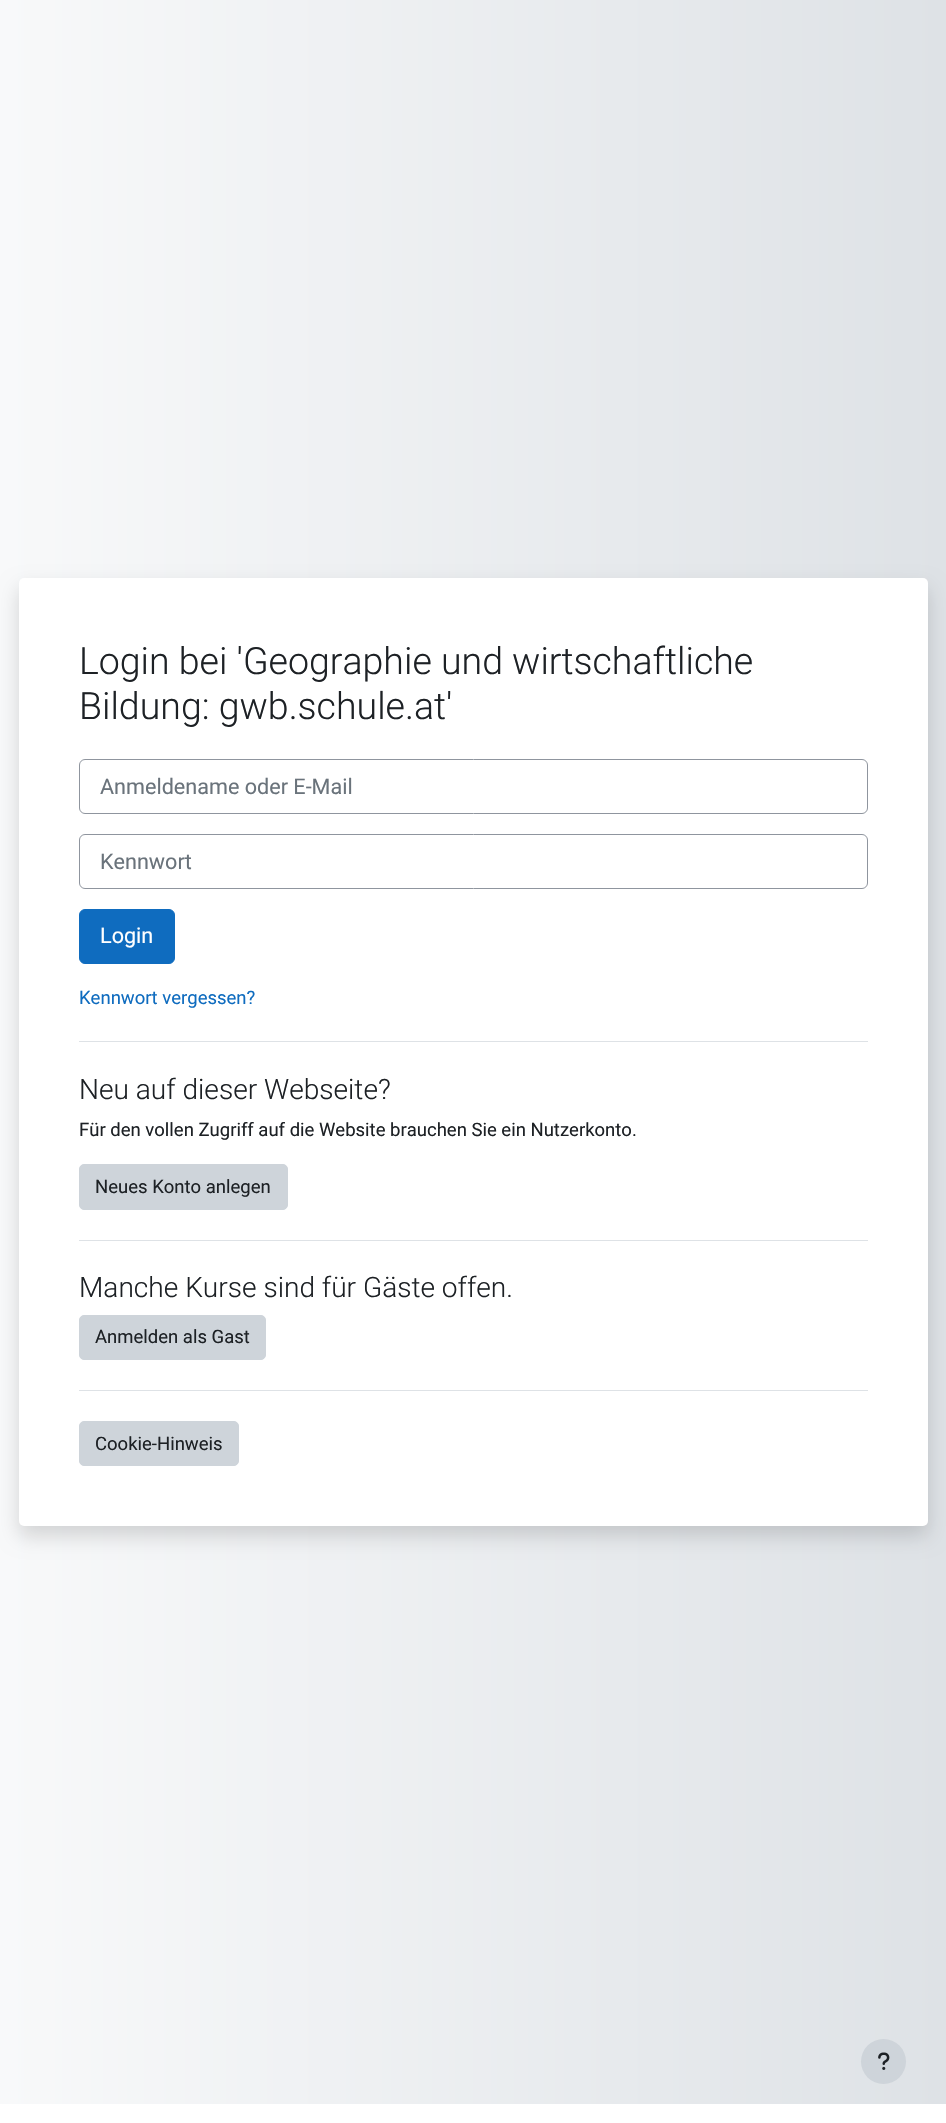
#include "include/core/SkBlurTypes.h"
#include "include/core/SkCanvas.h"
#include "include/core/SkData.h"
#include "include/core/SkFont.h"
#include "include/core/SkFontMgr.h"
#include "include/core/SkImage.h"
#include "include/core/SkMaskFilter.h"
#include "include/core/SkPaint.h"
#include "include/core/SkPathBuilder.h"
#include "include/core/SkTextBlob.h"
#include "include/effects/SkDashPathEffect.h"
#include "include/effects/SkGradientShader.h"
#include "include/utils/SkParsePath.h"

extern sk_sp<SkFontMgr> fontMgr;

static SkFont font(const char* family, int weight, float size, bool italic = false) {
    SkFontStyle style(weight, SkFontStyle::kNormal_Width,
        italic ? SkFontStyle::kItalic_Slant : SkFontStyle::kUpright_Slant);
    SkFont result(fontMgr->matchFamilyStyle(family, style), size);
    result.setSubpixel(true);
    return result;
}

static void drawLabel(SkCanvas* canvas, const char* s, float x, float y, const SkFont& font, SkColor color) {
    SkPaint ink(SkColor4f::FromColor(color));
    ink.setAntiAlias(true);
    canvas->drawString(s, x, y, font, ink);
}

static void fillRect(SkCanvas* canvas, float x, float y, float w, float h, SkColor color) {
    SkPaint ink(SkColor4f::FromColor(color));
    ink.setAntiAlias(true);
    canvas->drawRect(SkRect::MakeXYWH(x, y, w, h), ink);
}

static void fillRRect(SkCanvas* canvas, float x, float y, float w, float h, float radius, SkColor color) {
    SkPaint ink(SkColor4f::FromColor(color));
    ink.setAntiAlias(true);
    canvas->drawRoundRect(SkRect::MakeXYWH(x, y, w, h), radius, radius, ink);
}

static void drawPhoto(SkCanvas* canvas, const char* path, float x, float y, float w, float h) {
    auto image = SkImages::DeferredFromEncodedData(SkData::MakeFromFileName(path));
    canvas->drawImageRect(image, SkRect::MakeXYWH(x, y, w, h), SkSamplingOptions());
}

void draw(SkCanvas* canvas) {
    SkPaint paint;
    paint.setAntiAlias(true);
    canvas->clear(0xFFFFFFFF);
    {
        const SkColor colors[] = {0xFFF8F9FA, 0xFFDEE2E6};
        const float stops[] = {0, 1};
        const SkPoint ends[] = {{0, 1052}, {946, 1052}};
        paint.setShader(SkGradientShader::MakeLinear(ends, colors, stops, 2, SkTileMode::kClamp));
        paint.setAlpha(255);
    }
    canvas->drawRect(SkRect::MakeXYWH(0, 0, 946, 2104), paint);
    paint.setShader(nullptr);
    paint.setColor(0x26000000);
    paint.setMaskFilter(SkMaskFilter::MakeBlur(kNormal_SkBlurStyle, 10));
    canvas->drawRoundRect(SkRect::MakeXYWH(19, 588, 909, 948), 5, 5, paint);
    paint.setMaskFilter(nullptr);
    fillRRect(canvas, 19, 578, 909, 948, 5, 0xFFFFFFFF);
    SkFont font1 = font("Roboto", 300, 37.5f);
    drawLabel(canvas, "Login bei 'Geographie und wirtschaftliche", 79, 674, font1, 0xFF1D2125);
    drawLabel(canvas, "Bildung: gwb.schule.at'", 79, 719, font1, 0xFF1D2125);
    paint.setStroke(true);
    paint.setStrokeWidth(1);
    paint.setColor(0xFF8F959E);
    canvas->drawRoundRect(SkRect::MakeXYWH(79.5f, 759.5f, 788, 54), 5.5f, 5.5f, paint);
    SkFont font2 = font("Roboto", 400, 21.6f);
    drawLabel(canvas, "Anmeldename oder E-Mail", 100, 794, font2, 0xFF6A737B);
    canvas->drawRoundRect(SkRect::MakeXYWH(79.5f, 834.5f, 788, 54), 5.5f, 5.5f, paint);
    drawLabel(canvas, "Kennwort", 100, 869, font2, 0xFF6A737B);
    paint.setStroke(false);
    paint.setColor(0xFF0F6CBF);
    canvas->drawRoundRect(SkRect::MakeXYWH(79.5f, 909.5f, 95, 54), 5.5f, 5.5f, paint);
    paint.setStroke(true);
    canvas->drawRoundRect(SkRect::MakeXYWH(79.5f, 909.5f, 95, 54), 5.5f, 5.5f, paint);
    drawLabel(canvas, "Login", 100, 943, font2, 0xFFFFFFFF);
    SkFont font3 = font("Roboto", 400, 18.5f);
    drawLabel(canvas, "Kennwort vergessen?", 79, 1004, font3, 0xFF0F6CBF);
    fillRect(canvas, 79, 1041, 789, 1, 0xFFDEE2E6);
    SkFont font4 = font("Roboto", 300, 28.1f);
    drawLabel(canvas, "Neu auf dieser Webseite?", 79, 1099, font4, 0xFF1D2125);
    drawLabel(canvas, "Für den vollen Zugriff auf die Website brauchen Sie ein Nutzerkonto.", 79, 1136, font3, 0xFF1D2125);
    paint.setStroke(false);
    paint.setColor(0xFFCED4DA);
    canvas->drawRoundRect(SkRect::MakeXYWH(79.5f, 1164.5f, 208, 45), 4.5f, 4.5f, paint);
    paint.setStroke(true);
    canvas->drawRoundRect(SkRect::MakeXYWH(79.5f, 1164.5f, 208, 45), 4.5f, 4.5f, paint);
    drawLabel(canvas, "Neues Konto anlegen", 95, 1193, font3, 0xFF1D2125);
    fillRect(canvas, 79, 1240, 789, 1, 0xFFDEE2E6);
    drawLabel(canvas, "Manche Kurse sind für Gäste offen.", 79, 1297, font4, 0xFF1D2125);
    paint.setStroke(false);
    canvas->drawRoundRect(SkRect::MakeXYWH(79.5f, 1315.5f, 186, 44), 4.5f, 4.5f, paint);
    paint.setStroke(true);
    canvas->drawRoundRect(SkRect::MakeXYWH(79.5f, 1315.5f, 186, 44), 4.5f, 4.5f, paint);
    drawLabel(canvas, "Anmelden als Gast", 95, 1343, font3, 0xFF1D2125);
    fillRect(canvas, 79, 1390, 789, 1, 0xFFDEE2E6);
    paint.setStroke(false);
    canvas->drawRoundRect(SkRect::MakeXYWH(79.5f, 1421.5f, 159, 44), 4.5f, 4.5f, paint);
    paint.setStroke(true);
    canvas->drawRoundRect(SkRect::MakeXYWH(79.5f, 1421.5f, 159, 44), 4.5f, 4.5f, paint);
    drawLabel(canvas, "Cookie-Hinweis", 95, 1450, font3, 0xFF1D2125);
    paint.setStroke(false);
    canvas->drawCircle(883.5f, 2061.5f, 22.5f, paint);
    drawPhoto(canvas, "assets/img1.png", 878, 2052, 12, 18);
}
